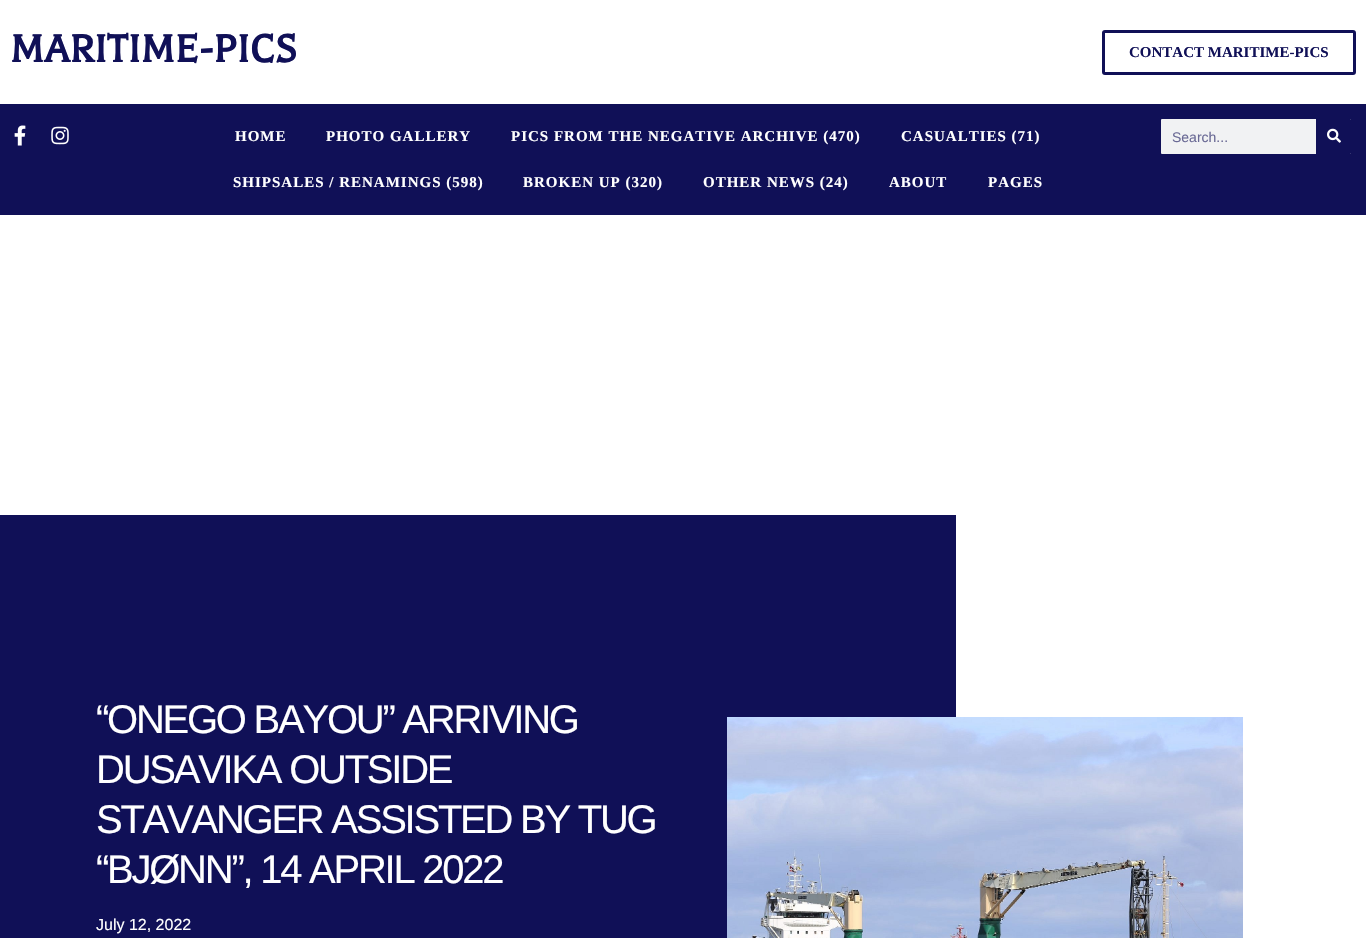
#include "include/core/SkBlurTypes.h"
#include "include/core/SkCanvas.h"
#include "include/core/SkData.h"
#include "include/core/SkFont.h"
#include "include/core/SkFontMgr.h"
#include "include/core/SkImage.h"
#include "include/core/SkMaskFilter.h"
#include "include/core/SkPaint.h"
#include "include/core/SkPathBuilder.h"
#include "include/core/SkTextBlob.h"
#include "include/effects/SkDashPathEffect.h"
#include "include/effects/SkGradientShader.h"
#include "include/utils/SkParsePath.h"

extern sk_sp<SkFontMgr> fontMgr;

static SkFont font(const char* family, int weight, float size, bool italic = false) {
    SkFontStyle style(weight, SkFontStyle::kNormal_Width,
        italic ? SkFontStyle::kItalic_Slant : SkFontStyle::kUpright_Slant);
    SkFont result(fontMgr->matchFamilyStyle(family, style), size);
    result.setSubpixel(true);
    return result;
}

static void drawLabel(SkCanvas* canvas, const char* s, float x, float y, const SkFont& font, SkColor color) {
    SkPaint ink(SkColor4f::FromColor(color));
    ink.setAntiAlias(true);
    canvas->drawString(s, x, y, font, ink);
}

static void drawTracked(SkCanvas* canvas, const char* s, float x, float y, const SkFont& font, const SkPaint& ink, float letter, float word) {
    std::vector<SkGlyphID> glyphs(font.countText(s, strlen(s), SkTextEncoding::kUTF8));
    std::vector<float> xs(glyphs.size());
    font.textToGlyphs(s, strlen(s), SkTextEncoding::kUTF8, glyphs);
    font.getXPos(glyphs, xs, x);
    float extra = 0;
    for (size_t i = 0; i < glyphs.size(); i++) {
        xs[i] += extra;
        extra += letter + word * (glyphs[i] == font.unicharToGlyph(' '));
    }
    canvas->drawTextBlob(SkTextBlob::MakeFromPosHGlyphs(glyphs, xs, y, font), 0, 0, ink);
}

static void fillRect(SkCanvas* canvas, float x, float y, float w, float h, SkColor color) {
    SkPaint ink(SkColor4f::FromColor(color));
    ink.setAntiAlias(true);
    canvas->drawRect(SkRect::MakeXYWH(x, y, w, h), ink);
}

static void fillRRect(SkCanvas* canvas, float x, float y, float w, float h, float radius, SkColor color) {
    SkPaint ink(SkColor4f::FromColor(color));
    ink.setAntiAlias(true);
    canvas->drawRoundRect(SkRect::MakeXYWH(x, y, w, h), radius, radius, ink);
}

static void drawPhoto(SkCanvas* canvas, const char* path, float x, float y, float w, float h) {
    auto image = SkImages::DeferredFromEncodedData(SkData::MakeFromFileName(path));
    canvas->drawImageRect(image, SkRect::MakeXYWH(x, y, w, h), SkSamplingOptions());
}

static SkPath parsePath(const char* data, bool evenOdd = false) {
    SkPath result = *SkParsePath::FromSVGString(data);
    if (evenOdd) result.setFillType(SkPathFillType::kEvenOdd);
    return result;
}

void draw(SkCanvas* canvas) {
    SkPaint paint;
    paint.setAntiAlias(true);
    canvas->clear(0xFFFFFFFF);
    SkFont font1 = font("Balthazar", 700, 44);
    paint.setColor(0xFF101057);
    drawTracked(canvas, "MARITIME-PICS", 10, 62, font1, paint, 0.4f, 0);
    paint.setStroke(true);
    paint.setStrokeWidth(3);
    canvas->drawRoundRect(SkRect::MakeXYWH(1103.5f, 31.5f, 251, 42), 1.5f, 1.5f, paint);
    SkFont font2 = font("Liberation Serif", 700, 15);
    drawLabel(canvas, "CONTACT MARITIME-PICS", 1129, 57, font2, 0xFF101057);
    fillRect(canvas, 0, 104, 1366, 111, 0xFF101057);
    drawPhoto(canvas, "assets/img1.png", 14, 125, 12, 21);
    drawPhoto(canvas, "assets/img2.png", 51, 126, 18, 19);
    paint.setStroke(false);
    paint.setColor(0xFFFFFFFF);
    drawTracked(canvas, "HOME", 235, 141, font2, paint, 1, 0);
    drawTracked(canvas, "PHOTO GALLERY", 326, 141, font2, paint, 1, 0);
    drawTracked(canvas, "PICS FROM THE NEGATIVE ARCHIVE (470)", 511, 141, font2, paint, 1, 0);
    drawTracked(canvas, "CASUALTIES (71)", 901, 141, font2, paint, 1, 0);
    drawTracked(canvas, "SHIPSALES / RENAMINGS (598)", 233, 187, font2, paint, 1, 0);
    drawTracked(canvas, "BROKEN UP (320)", 523, 187, font2, paint, 1, 0);
    drawTracked(canvas, "OTHER NEWS (24)", 703, 187, font2, paint, 1, 0);
    drawTracked(canvas, "ABOUT", 889, 187, font2, paint, 1, 0);
    drawTracked(canvas, "PAGES", 988, 187, font2, paint, 1, 0);
    fillRRect(canvas, 1161, 119, 190, 35, 1, 0xFFF1F2F3);
    SkFont font3 = font("Liberation Sans", 400, 14);
    drawLabel(canvas, "Search...", 1172, 142, font3, 0xFF6A6A95);
    paint.setColor(0xFF101057);
    canvas->drawPath(parsePath("M1316 119H1350C1350.5 119 1351 119.5 1351 120V153C1351 153.5 1350.5 154 1350 154H1316Z"), paint);
    drawPhoto(canvas, "assets/img3.png", 1327, 128, 14, 15);
    fillRect(canvas, 0, 515, 956, 423, 0xFF101057);
    SkFont font4 = font("Liberation Sans", 400, 40);
    paint.setColor(0xFFFFFFFF);
    drawTracked(canvas, "“ONEGO BAYOU” ARRIVING", 96, 733, font4, paint, -2.25f, 0);
    drawTracked(canvas, "DUSAVIKA OUTSIDE", 96, 783, font4, paint, -2.25f, 0);
    drawTracked(canvas, "STAVANGER ASSISTED BY TUG", 96, 833, font4, paint, -2.25f, 0);
    drawTracked(canvas, "“BJØNN”, 14 APRIL 2022", 96, 883, font4, paint, -2.25f, 0);
    SkFont font5 = font("Liberation Sans", 400, 16);
    drawLabel(canvas, "July 12, 2022", 96, 930, font5, 0xFFFFFFFF);
    drawPhoto(canvas, "assets/img4.png", 727, 717, 516, 221);
}
